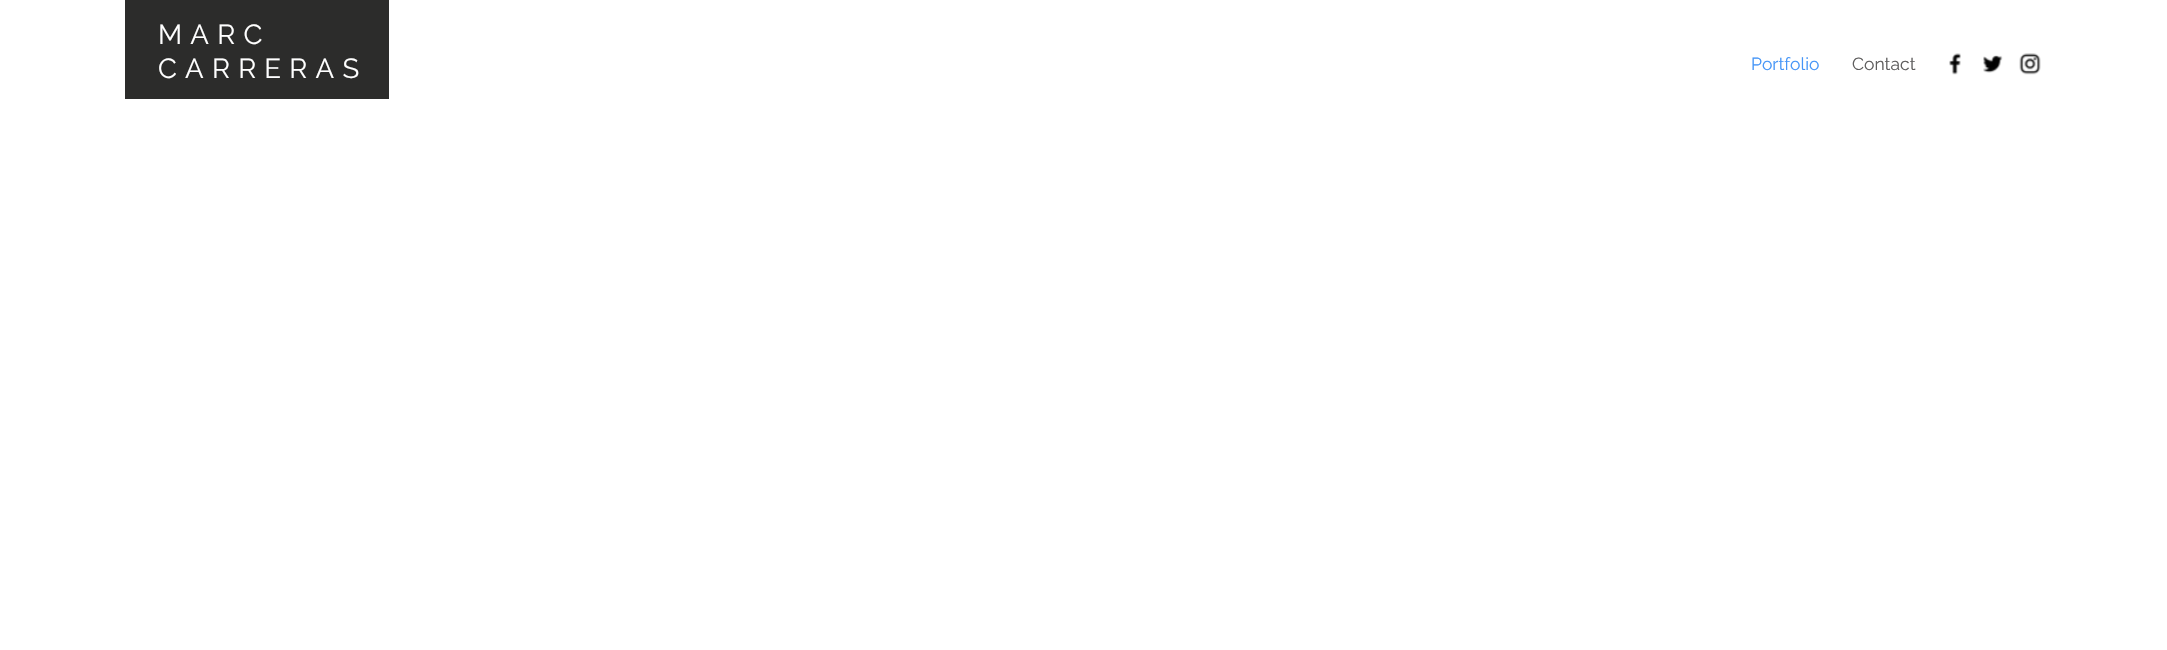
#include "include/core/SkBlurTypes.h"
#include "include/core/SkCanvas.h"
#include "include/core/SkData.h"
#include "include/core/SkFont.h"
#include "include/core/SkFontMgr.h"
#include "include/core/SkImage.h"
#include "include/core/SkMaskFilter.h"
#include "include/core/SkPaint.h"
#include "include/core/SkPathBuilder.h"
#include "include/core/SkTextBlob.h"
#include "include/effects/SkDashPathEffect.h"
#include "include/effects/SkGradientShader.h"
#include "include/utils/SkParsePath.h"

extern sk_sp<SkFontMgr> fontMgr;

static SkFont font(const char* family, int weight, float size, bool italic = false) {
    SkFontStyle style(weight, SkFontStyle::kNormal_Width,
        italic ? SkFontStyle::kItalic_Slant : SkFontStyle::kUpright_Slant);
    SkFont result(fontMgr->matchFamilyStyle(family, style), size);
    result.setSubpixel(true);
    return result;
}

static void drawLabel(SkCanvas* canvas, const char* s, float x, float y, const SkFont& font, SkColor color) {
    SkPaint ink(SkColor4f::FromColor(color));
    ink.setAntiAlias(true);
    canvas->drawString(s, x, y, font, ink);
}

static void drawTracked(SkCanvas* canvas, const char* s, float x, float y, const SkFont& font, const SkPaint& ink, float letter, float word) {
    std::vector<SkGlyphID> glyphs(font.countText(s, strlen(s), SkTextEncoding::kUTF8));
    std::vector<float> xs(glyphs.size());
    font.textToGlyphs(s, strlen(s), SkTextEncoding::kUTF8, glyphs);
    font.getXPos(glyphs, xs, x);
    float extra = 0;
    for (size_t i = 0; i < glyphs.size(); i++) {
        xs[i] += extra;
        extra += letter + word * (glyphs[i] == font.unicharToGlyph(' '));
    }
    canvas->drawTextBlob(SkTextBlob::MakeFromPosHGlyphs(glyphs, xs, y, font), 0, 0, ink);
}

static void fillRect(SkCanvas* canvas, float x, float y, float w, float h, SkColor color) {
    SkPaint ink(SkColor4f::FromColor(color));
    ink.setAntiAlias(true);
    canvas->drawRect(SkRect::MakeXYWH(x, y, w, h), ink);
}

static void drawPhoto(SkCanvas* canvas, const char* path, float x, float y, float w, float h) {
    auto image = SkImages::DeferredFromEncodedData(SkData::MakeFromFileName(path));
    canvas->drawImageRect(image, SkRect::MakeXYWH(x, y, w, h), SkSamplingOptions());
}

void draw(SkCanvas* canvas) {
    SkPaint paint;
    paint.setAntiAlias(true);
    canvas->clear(0xFFFFFFFF);
    fillRect(canvas, 125, 0, 264, 99, 0xFF2C2C2B);
    SkFont font1 = font("Raleway", 400, 27.5f);
    paint.setColor(0xFFFFFFFF);
    drawTracked(canvas, "MARC", 158, 44, font1, paint, 8.25f, 0);
    drawTracked(canvas, "CARRERAS", 158, 78, font1, paint, 8.25f, 0);
    SkFont font2 = font("Raleway", 400, 17.5f);
    drawLabel(canvas, "Portfolio", 1751, 70, font2, 0xFF4595F7);
    drawLabel(canvas, "Contact", 1852, 70, font2, 0xFF5E5D5D);
    drawPhoto(canvas, "assets/img1.png", 1949, 53, 12, 22);
    drawPhoto(canvas, "assets/img2.png", 1983, 55, 20, 18);
    drawPhoto(canvas, "assets/img3.png", 2019, 53, 22, 22);
}
